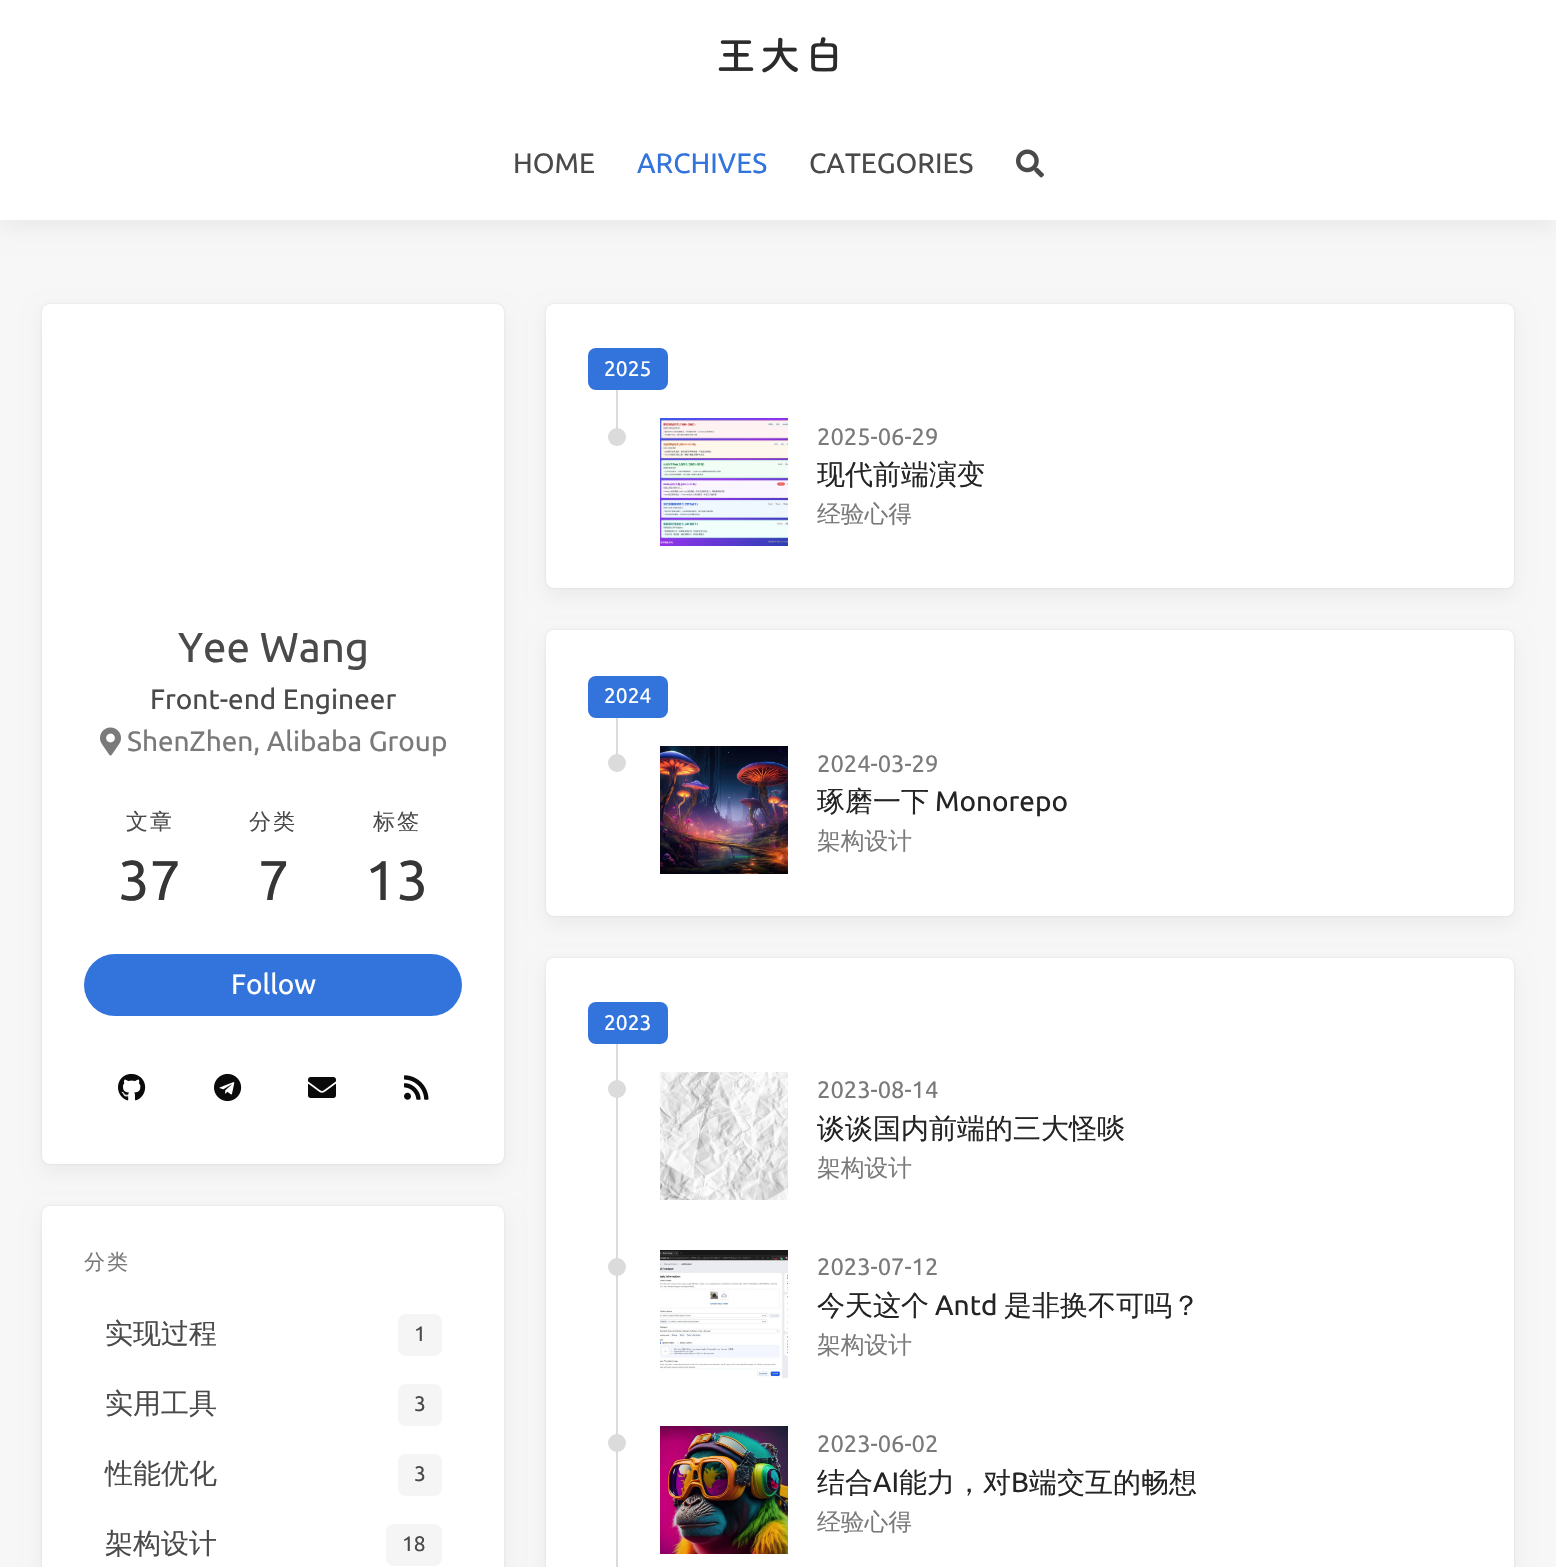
#include "include/core/SkBlurTypes.h"
#include "include/core/SkCanvas.h"
#include "include/core/SkData.h"
#include "include/core/SkFont.h"
#include "include/core/SkFontMgr.h"
#include "include/core/SkImage.h"
#include "include/core/SkMaskFilter.h"
#include "include/core/SkPaint.h"
#include "include/core/SkPathBuilder.h"
#include "include/core/SkTextBlob.h"
#include "include/effects/SkDashPathEffect.h"
#include "include/effects/SkGradientShader.h"
#include "include/utils/SkParsePath.h"

extern sk_sp<SkFontMgr> fontMgr;

static SkFont font(const char* family, int weight, float size, bool italic = false) {
    SkFontStyle style(weight, SkFontStyle::kNormal_Width,
        italic ? SkFontStyle::kItalic_Slant : SkFontStyle::kUpright_Slant);
    SkFont result(fontMgr->matchFamilyStyle(family, style), size);
    result.setSubpixel(true);
    return result;
}

static void drawLabel(SkCanvas* canvas, const char* s, float x, float y, const SkFont& font, SkColor color) {
    SkPaint ink(SkColor4f::FromColor(color));
    ink.setAntiAlias(true);
    canvas->drawString(s, x, y, font, ink);
}

static void drawTracked(SkCanvas* canvas, const char* s, float x, float y, const SkFont& font, const SkPaint& ink, float letter, float word) {
    std::vector<SkGlyphID> glyphs(font.countText(s, strlen(s), SkTextEncoding::kUTF8));
    std::vector<float> xs(glyphs.size());
    font.textToGlyphs(s, strlen(s), SkTextEncoding::kUTF8, glyphs);
    font.getXPos(glyphs, xs, x);
    float extra = 0;
    for (size_t i = 0; i < glyphs.size(); i++) {
        xs[i] += extra;
        extra += letter + word * (glyphs[i] == font.unicharToGlyph(' '));
    }
    canvas->drawTextBlob(SkTextBlob::MakeFromPosHGlyphs(glyphs, xs, y, font), 0, 0, ink);
}

static void fillRect(SkCanvas* canvas, float x, float y, float w, float h, SkColor color) {
    SkPaint ink(SkColor4f::FromColor(color));
    ink.setAntiAlias(true);
    canvas->drawRect(SkRect::MakeXYWH(x, y, w, h), ink);
}

static void fillRRect(SkCanvas* canvas, float x, float y, float w, float h, float radius, SkColor color) {
    SkPaint ink(SkColor4f::FromColor(color));
    ink.setAntiAlias(true);
    canvas->drawRoundRect(SkRect::MakeXYWH(x, y, w, h), radius, radius, ink);
}

static void drawPhoto(SkCanvas* canvas, const char* path, float x, float y, float w, float h) {
    auto image = SkImages::DeferredFromEncodedData(SkData::MakeFromFileName(path));
    canvas->drawImageRect(image, SkRect::MakeXYWH(x, y, w, h), SkSamplingOptions());
}

void draw(SkCanvas* canvas) {
    SkPaint paint;
    paint.setAntiAlias(true);
    canvas->clear(0xFFF7F7F7);
    paint.setColor(0x0D000000);
    paint.setMaskFilter(SkMaskFilter::MakeBlur(kNormal_SkBlurStyle, 10));
    canvas->drawRect(SkRect::MakeXYWH(0, 8, 1556, 220), paint);
    paint.setMaskFilter(nullptr);
    fillRect(canvas, 0, 0, 1556, 220, 0xFFFFFFFF);
    drawPhoto(canvas, "assets/img1.png", 718, 37, 120, 36);
    SkFont font1 = font("Ubuntu", 400, 28);
    drawLabel(canvas, "HOME", 513, 173, font1, 0xFF4A4A4A);
    drawLabel(canvas, "ARCHIVES", 637, 173, font1, 0xFF3273DC);
    drawLabel(canvas, "CATEGORIES", 809, 173, font1, 0xFF4A4A4A);
    drawPhoto(canvas, "assets/img2.png", 1016, 149, 28, 29);
    paint.setColor(0x1A000000);
    paint.setMaskFilter(SkMaskFilter::MakeBlur(kNormal_SkBlurStyle, 1));
    canvas->drawRoundRect(SkRect::MakeXYWH(42, 304, 462, 860), 8, 8, paint);
    paint.setMaskFilter(nullptr);
    paint.setColor(0x0D000000);
    paint.setMaskFilter(SkMaskFilter::MakeBlur(kNormal_SkBlurStyle, 10));
    canvas->drawRoundRect(SkRect::MakeXYWH(42, 312, 462, 860), 8, 8, paint);
    paint.setMaskFilter(nullptr);
    fillRRect(canvas, 42, 304, 462, 860, 8, 0xFFFFFFFF);
    SkFont font2 = font("Ubuntu", 400, 42);
    drawLabel(canvas, "Yee Wang", 178, 662, font2, 0xFF4A4A4A);
    drawLabel(canvas, "Front-end Engineer", 150, 709, font1, 0xFF4A4A4A);
    drawPhoto(canvas, "assets/img3.png", 100, 727, 21, 29);
    drawLabel(canvas, "ShenZhen, Alibaba Group", 127, 751, font1, 0xFF7A7A7A);
    SkFont font3 = font("WenQuanYi Zen Hei", 500, 22);
    paint.setColor(0xFF4A4A4A);
    drawTracked(canvas, "文章", 126, 829, font3, paint, 2, 0);
    SkFont font4 = font("Ubuntu", 400, 56);
    drawLabel(canvas, "37", 118, 900, font4, 0xFF363636);
    drawTracked(canvas, "分类", 249, 829, font3, paint, 2, 0);
    drawLabel(canvas, "7", 258, 900, font4, 0xFF363636);
    drawTracked(canvas, "标签", 373, 829, font3, paint, 2, 0);
    drawLabel(canvas, "13", 365, 900, font4, 0xFF363636);
    fillRRect(canvas, 84, 954, 378, 62, 31, 0xFF3273DC);
    drawLabel(canvas, "Follow", 231, 994, font1, 0xFFFFFFFF);
    drawPhoto(canvas, "assets/img4.png", 118, 1073, 28, 28);
    drawPhoto(canvas, "assets/img5.png", 214, 1073, 28, 29);
    drawPhoto(canvas, "assets/img6.png", 308, 1077, 28, 21);
    drawPhoto(canvas, "assets/img7.png", 404, 1075, 25, 25);
    paint.setColor(0x1A000000);
    paint.setMaskFilter(SkMaskFilter::MakeBlur(kNormal_SkBlurStyle, 1));
    canvas->drawRoundRect(SkRect::MakeXYWH(42, 1206, 462, 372), 8, 8, paint);
    paint.setMaskFilter(nullptr);
    paint.setColor(0x0D000000);
    paint.setMaskFilter(SkMaskFilter::MakeBlur(kNormal_SkBlurStyle, 10));
    canvas->drawRoundRect(SkRect::MakeXYWH(42, 1214, 462, 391), 8, 8, paint);
    paint.setMaskFilter(nullptr);
    fillRRect(canvas, 42, 1206, 462, 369, 8, 0xFFFFFFFF);
    SkFont font5 = font("WenQuanYi Zen Hei", 500, 21);
    paint.setColor(0xFF7A7A7A);
    drawTracked(canvas, "分类", 84, 1269, font5, paint, 2, 0);
    SkFont font6 = font("WenQuanYi Zen Hei", 500, 28);
    drawLabel(canvas, "实现过程", 105, 1343, font6, 0xFF4A4A4A);
    fillRRect(canvas, 398, 1314, 44, 42, 8, 0xFFF5F5F5);
    SkFont font7 = font("Ubuntu", 400, 21);
    drawLabel(canvas, "1", 414, 1341, font7, 0xFF4A4A4A);
    drawLabel(canvas, "实用工具", 105, 1413, font6, 0xFF4A4A4A);
    fillRRect(canvas, 398, 1384, 44, 42, 8, 0xFFF5F5F5);
    drawLabel(canvas, "3", 414, 1411, font7, 0xFF4A4A4A);
    drawLabel(canvas, "性能优化", 105, 1483, font6, 0xFF4A4A4A);
    fillRRect(canvas, 398, 1454, 44, 42, 8, 0xFFF5F5F5);
    drawLabel(canvas, "3", 414, 1481, font7, 0xFF4A4A4A);
    drawLabel(canvas, "架构设计", 105, 1553, font6, 0xFF4A4A4A);
    fillRRect(canvas, 386, 1524, 56, 42, 8, 0xFFF5F5F5);
    drawLabel(canvas, "18", 402, 1551, font7, 0xFF4A4A4A);
    paint.setColor(0x1A000000);
    paint.setMaskFilter(SkMaskFilter::MakeBlur(kNormal_SkBlurStyle, 1));
    canvas->drawRoundRect(SkRect::MakeXYWH(546, 304, 968, 284), 8, 8, paint);
    paint.setMaskFilter(nullptr);
    paint.setColor(0x0D000000);
    paint.setMaskFilter(SkMaskFilter::MakeBlur(kNormal_SkBlurStyle, 10));
    canvas->drawRoundRect(SkRect::MakeXYWH(546, 312, 968, 284), 8, 8, paint);
    paint.setMaskFilter(nullptr);
    fillRRect(canvas, 546, 304, 968, 284, 8, 0xFFFFFFFF);
    fillRRect(canvas, 588, 348, 80, 42, 8, 0xFF3273DC);
    drawLabel(canvas, "2025", 604, 376, font7, 0xFFFFFFFF);
    fillRect(canvas, 616, 390, 2, 56, 0xFFDBDBDB);
    paint.setColor(0xFFDBDBDB);
    canvas->drawCircle(617, 437, 9, paint);
    drawPhoto(canvas, "assets/img8.png", 660, 418, 128, 128);
    SkFont font8 = font("Ubuntu", 400, 23.75f);
    drawLabel(canvas, "2025-06-29", 817, 445, font8, 0xFF7A7A7A);
    drawLabel(canvas, "现代前端演变", 817, 484, font6, 0xFF242424);
    SkFont font9 = font("WenQuanYi Zen Hei", 500, 23.75f);
    drawLabel(canvas, "经验心得", 817, 522, font9, 0xFF7A7A7A);
    paint.setColor(0x1A000000);
    paint.setMaskFilter(SkMaskFilter::MakeBlur(kNormal_SkBlurStyle, 1));
    canvas->drawRoundRect(SkRect::MakeXYWH(546, 630, 968, 286), 8, 8, paint);
    paint.setMaskFilter(nullptr);
    paint.setColor(0x0D000000);
    paint.setMaskFilter(SkMaskFilter::MakeBlur(kNormal_SkBlurStyle, 10));
    canvas->drawRoundRect(SkRect::MakeXYWH(546, 638, 968, 286), 8, 8, paint);
    paint.setMaskFilter(nullptr);
    fillRRect(canvas, 546, 630, 968, 286, 8, 0xFFFFFFFF);
    fillRRect(canvas, 588, 676, 80, 42, 8, 0xFF3273DC);
    drawLabel(canvas, "2024", 604, 703, font7, 0xFFFFFFFF);
    fillRect(canvas, 616, 718, 2, 54, 0xFFDBDBDB);
    paint.setColor(0xFFDBDBDB);
    canvas->drawCircle(617, 763, 9, paint);
    drawPhoto(canvas, "assets/img9.png", 660, 746, 128, 128);
    drawLabel(canvas, "2024-03-29", 817, 772, font8, 0xFF7A7A7A);
    drawLabel(canvas, "琢磨一下", 817, 811, font6, 0xFF242424);
    drawLabel(canvas, "Monorepo", 935, 811, font1, 0xFF242424);
    drawLabel(canvas, "架构设计", 817, 849, font9, 0xFF7A7A7A);
    paint.setColor(0x1A000000);
    paint.setMaskFilter(SkMaskFilter::MakeBlur(kNormal_SkBlurStyle, 1));
    canvas->drawRoundRect(SkRect::MakeXYWH(546, 958, 968, 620), 8, 8, paint);
    paint.setMaskFilter(nullptr);
    paint.setColor(0x0D000000);
    paint.setMaskFilter(SkMaskFilter::MakeBlur(kNormal_SkBlurStyle, 10));
    canvas->drawRoundRect(SkRect::MakeXYWH(546, 966, 968, 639), 8, 8, paint);
    paint.setMaskFilter(nullptr);
    fillRRect(canvas, 546, 958, 968, 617, 8, 0xFFFFFFFF);
    fillRRect(canvas, 588, 1002, 80, 42, 8, 0xFF3273DC);
    drawLabel(canvas, "2023", 604, 1030, font7, 0xFFFFFFFF);
    fillRect(canvas, 616, 1044, 2, 523, 0xFFDBDBDB);
    paint.setColor(0xFFDBDBDB);
    canvas->drawCircle(617, 1089, 9, paint);
    drawPhoto(canvas, "assets/img10.png", 660, 1072, 128, 128);
    drawLabel(canvas, "2023-08-14", 817, 1098, font8, 0xFF7A7A7A);
    drawLabel(canvas, "谈谈国内前端的三大怪啖", 817, 1138, font6, 0xFF242424);
    drawLabel(canvas, "架构设计", 817, 1176, font9, 0xFF7A7A7A);
    canvas->drawCircle(617, 1267, 9, paint);
    drawPhoto(canvas, "assets/img11.png", 660, 1250, 128, 128);
    drawLabel(canvas, "2023-07-12", 817, 1275, font8, 0xFF7A7A7A);
    drawLabel(canvas, "今天这个", 817, 1315, font6, 0xFF242424);
    drawLabel(canvas, "Antd", 935, 1315, font1, 0xFF242424);
    drawLabel(canvas, "是非换不可吗？", 1004, 1315, font6, 0xFF242424);
    drawLabel(canvas, "架构设计", 817, 1353, font9, 0xFF7A7A7A);
    canvas->drawCircle(617, 1443, 9, paint);
    drawPhoto(canvas, "assets/img12.png", 660, 1426, 128, 128);
    drawLabel(canvas, "2023-06-02", 817, 1452, font8, 0xFF7A7A7A);
    drawLabel(canvas, "结合", 817, 1492, font6, 0xFF242424);
    drawLabel(canvas, "AI", 873, 1492, font1, 0xFF242424);
    drawLabel(canvas, "能力，对", 899, 1492, font6, 0xFF242424);
    drawLabel(canvas, "B", 1011, 1492, font1, 0xFF242424);
    drawLabel(canvas, "端交互的畅想", 1029, 1492, font6, 0xFF242424);
    drawLabel(canvas, "经验心得", 817, 1530, font9, 0xFF7A7A7A);
}
